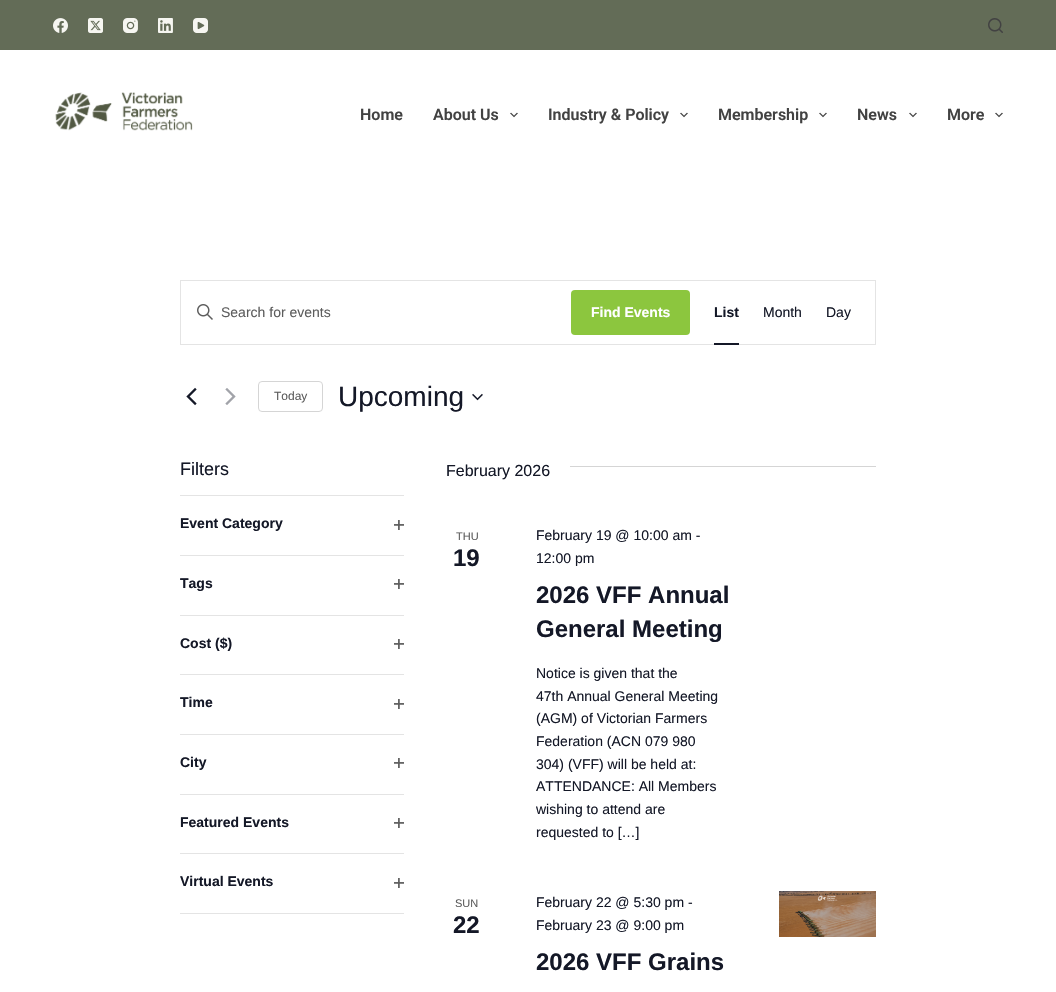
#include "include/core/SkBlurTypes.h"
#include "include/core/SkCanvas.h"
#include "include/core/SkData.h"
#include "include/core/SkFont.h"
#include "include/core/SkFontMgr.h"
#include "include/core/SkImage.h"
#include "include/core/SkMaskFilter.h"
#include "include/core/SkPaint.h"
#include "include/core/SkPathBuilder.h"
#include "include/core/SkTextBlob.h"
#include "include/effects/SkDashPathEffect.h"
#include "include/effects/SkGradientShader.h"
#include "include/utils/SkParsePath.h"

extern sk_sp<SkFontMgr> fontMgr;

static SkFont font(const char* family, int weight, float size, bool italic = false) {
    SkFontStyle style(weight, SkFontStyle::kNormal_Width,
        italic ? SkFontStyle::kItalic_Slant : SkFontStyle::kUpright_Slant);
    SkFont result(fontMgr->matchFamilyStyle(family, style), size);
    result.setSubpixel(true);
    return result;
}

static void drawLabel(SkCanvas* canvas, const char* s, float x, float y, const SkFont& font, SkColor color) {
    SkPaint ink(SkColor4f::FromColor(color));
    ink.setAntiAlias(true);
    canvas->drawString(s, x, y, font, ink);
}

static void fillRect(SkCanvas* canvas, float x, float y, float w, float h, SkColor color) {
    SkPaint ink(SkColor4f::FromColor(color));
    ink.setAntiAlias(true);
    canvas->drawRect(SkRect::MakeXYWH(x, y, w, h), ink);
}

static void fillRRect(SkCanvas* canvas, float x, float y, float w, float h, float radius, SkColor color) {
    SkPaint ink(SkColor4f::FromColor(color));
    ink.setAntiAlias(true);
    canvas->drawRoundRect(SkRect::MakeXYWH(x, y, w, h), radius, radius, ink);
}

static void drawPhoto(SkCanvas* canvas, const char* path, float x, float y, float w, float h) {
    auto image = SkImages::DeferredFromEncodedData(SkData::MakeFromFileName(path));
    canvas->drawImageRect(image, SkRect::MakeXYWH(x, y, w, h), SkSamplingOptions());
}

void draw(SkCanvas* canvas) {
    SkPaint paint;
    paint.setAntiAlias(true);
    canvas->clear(0xFFFFFFFF);
    fillRect(canvas, 0, 0, 1056, 50, 0xFF636C57);
    drawPhoto(canvas, "assets/img1.png", 53, 18, 15, 15);
    drawPhoto(canvas, "assets/img2.png", 88, 18, 15, 15);
    drawPhoto(canvas, "assets/img3.png", 123, 18, 15, 15);
    drawPhoto(canvas, "assets/img4.png", 158, 18, 15, 15);
    drawPhoto(canvas, "assets/img5.png", 193, 18, 15, 15);
    drawPhoto(canvas, "assets/img6.png", 988, 18, 15, 15);
    drawPhoto(canvas, "assets/img7.png", 55, 92, 138, 39);
    SkFont font1 = font("Roboto", 600, 16);
    drawLabel(canvas, "Home", 360, 120, font1, 0xFF424242);
    drawLabel(canvas, "About Us", 433, 120, font1, 0xFF424242);
    drawPhoto(canvas, "assets/img8.png", 510, 112, 8, 6);
    drawLabel(canvas, "Industry & Policy", 548, 120, font1, 0xFF424242);
    drawPhoto(canvas, "assets/img8.png", 680, 112, 8, 6);
    drawLabel(canvas, "Membership", 718, 120, font1, 0xFF424242);
    drawPhoto(canvas, "assets/img8.png", 819, 112, 8, 6);
    drawLabel(canvas, "News", 857, 120, font1, 0xFF424242);
    drawPhoto(canvas, "assets/img8.png", 909, 112, 8, 6);
    drawLabel(canvas, "More", 947, 120, font1, 0xFF424242);
    drawPhoto(canvas, "assets/img8.png", 995, 112, 8, 6);
    paint.setStroke(true);
    paint.setStrokeWidth(1);
    paint.setColor(0xFFE4E4E4);
    canvas->drawRect(SkRect::MakeXYWH(180.5f, 280.5f, 695, 64), paint);
    drawPhoto(canvas, "assets/img9.png", 197, 304, 16, 16);
    SkFont font2 = font("Liberation Sans", 400, 14);
    drawLabel(canvas, "Search for events", 221, 317, font2, 0xFF5D5D5D);
    fillRRect(canvas, 571, 290, 119, 45, 4, 0xFF8CC63E);
    SkFont font3 = font("Liberation Sans", 700, 14);
    drawLabel(canvas, "Find Events", 591, 317, font3, 0xFFFFFFFF);
    drawLabel(canvas, "List", 714, 317, font3, 0xFF141827);
    fillRect(canvas, 714, 343, 25, 2, 0xFF141827);
    drawLabel(canvas, "Month", 763, 317, font2, 0xFF141827);
    drawLabel(canvas, "Day", 826, 317, font2, 0xFF141827);
    drawPhoto(canvas, "assets/img10.png", 186, 387, 11, 19);
    drawPhoto(canvas, "assets/img11.png", 225, 388, 11, 17);
    paint.setColor(0xFFD5D5D5);
    canvas->drawRoundRect(SkRect::MakeXYWH(258.5f, 381.5f, 64, 30), 3.5f, 3.5f, paint);
    SkFont font4 = font("Liberation Sans", 400, 12);
    drawLabel(canvas, "Today", 274, 400, font4, 0xFF5D5D5D);
    SkFont font5 = font("Liberation Sans", 400, 28);
    drawLabel(canvas, "Upcoming", 338, 406, font5, 0xFF141827);
    drawPhoto(canvas, "assets/img12.png", 472, 393, 11, 8);
    SkFont font6 = font("Liberation Sans", 400, 18);
    drawLabel(canvas, "Filters", 180, 475, font6, 0xFF141827);
    fillRect(canvas, 180, 913, 224, 1, 0xFFE4E4E4);
    fillRect(canvas, 180, 495, 224, 1, 0xFFE4E4E4);
    drawLabel(canvas, "Event Category", 180, 528, font3, 0xFF141827);
    drawPhoto(canvas, "assets/img13.png", 394, 520, 10, 10);
    fillRect(canvas, 180, 555, 224, 1, 0xFFE4E4E4);
    drawLabel(canvas, "Tags", 180, 588, font3, 0xFF141827);
    drawPhoto(canvas, "assets/img13.png", 394, 579, 10, 10);
    fillRect(canvas, 180, 615, 224, 1, 0xFFE4E4E4);
    drawLabel(canvas, "Cost ($)", 180, 648, font3, 0xFF141827);
    drawPhoto(canvas, "assets/img13.png", 394, 639, 10, 10);
    fillRect(canvas, 180, 674, 224, 1, 0xFFE4E4E4);
    drawLabel(canvas, "Time", 180, 707, font3, 0xFF141827);
    drawPhoto(canvas, "assets/img13.png", 394, 699, 10, 10);
    fillRect(canvas, 180, 734, 224, 1, 0xFFE4E4E4);
    drawLabel(canvas, "City", 180, 767, font3, 0xFF141827);
    drawPhoto(canvas, "assets/img13.png", 394, 758, 10, 10);
    fillRect(canvas, 180, 794, 224, 1, 0xFFE4E4E4);
    drawLabel(canvas, "Featured Events", 180, 827, font3, 0xFF141827);
    drawPhoto(canvas, "assets/img13.png", 394, 818, 10, 10);
    fillRect(canvas, 180, 853, 224, 1, 0xFFE4E4E4);
    drawLabel(canvas, "Virtual Events", 180, 886, font3, 0xFF141827);
    drawPhoto(canvas, "assets/img13.png", 394, 878, 10, 10);
    SkFont font7 = font("Liberation Sans", 400, 16);
    drawLabel(canvas, "February 2026", 446, 476, font7, 0xFF141827);
    fillRect(canvas, 570, 466, 306, 1, 0xFFD5D5D5);
    SkFont font8 = font("Liberation Sans", 400, 11);
    drawLabel(canvas, "THU", 456, 540, font8, 0xFF5D5D5D);
    SkFont font9 = font("Liberation Sans", 700, 24);
    drawLabel(canvas, "19", 453, 566, font9, 0xFF141827);
    drawLabel(canvas, "February 19 @ 10:00 am -", 536, 540, font2, 0xFF141827);
    drawLabel(canvas, "12:00 pm", 536, 563, font2, 0xFF141827);
    drawLabel(canvas, "2026 VFF Annual", 536, 603, font9, 0xFF141827);
    drawLabel(canvas, "General Meeting", 536, 637, font9, 0xFF141827);
    drawLabel(canvas, "Notice is given that the", 536, 678, font2, 0xFF141827);
    drawLabel(canvas, "47th Annual General Meeting", 536, 701, font2, 0xFF141827);
    drawLabel(canvas, "(AGM) of Victorian Farmers", 536, 723, font2, 0xFF141827);
    drawLabel(canvas, "Federation (ACN 079 980", 536, 746, font2, 0xFF141827);
    drawLabel(canvas, "304) (VFF) will be held at:", 536, 769, font2, 0xFF141827);
    drawLabel(canvas, "ATTENDANCE: All Members", 536, 791, font2, 0xFF141827);
    drawLabel(canvas, "wishing to attend are", 536, 814, font2, 0xFF141827);
    drawLabel(canvas, "requested to […]", 536, 837, font2, 0xFF141827);
    drawLabel(canvas, "SUN", 455, 907, font8, 0xFF5D5D5D);
    drawLabel(canvas, "22", 453, 933, font9, 0xFF141827);
    drawLabel(canvas, "February 22 @ 5:30 pm -", 536, 907, font2, 0xFF141827);
    drawLabel(canvas, "February 23 @ 9:00 pm", 536, 930, font2, 0xFF141827);
    drawLabel(canvas, "2026 VFF Grains", 536, 970, font9, 0xFF141827);
    drawPhoto(canvas, "assets/img14.png", 779, 891, 97, 46);
}
